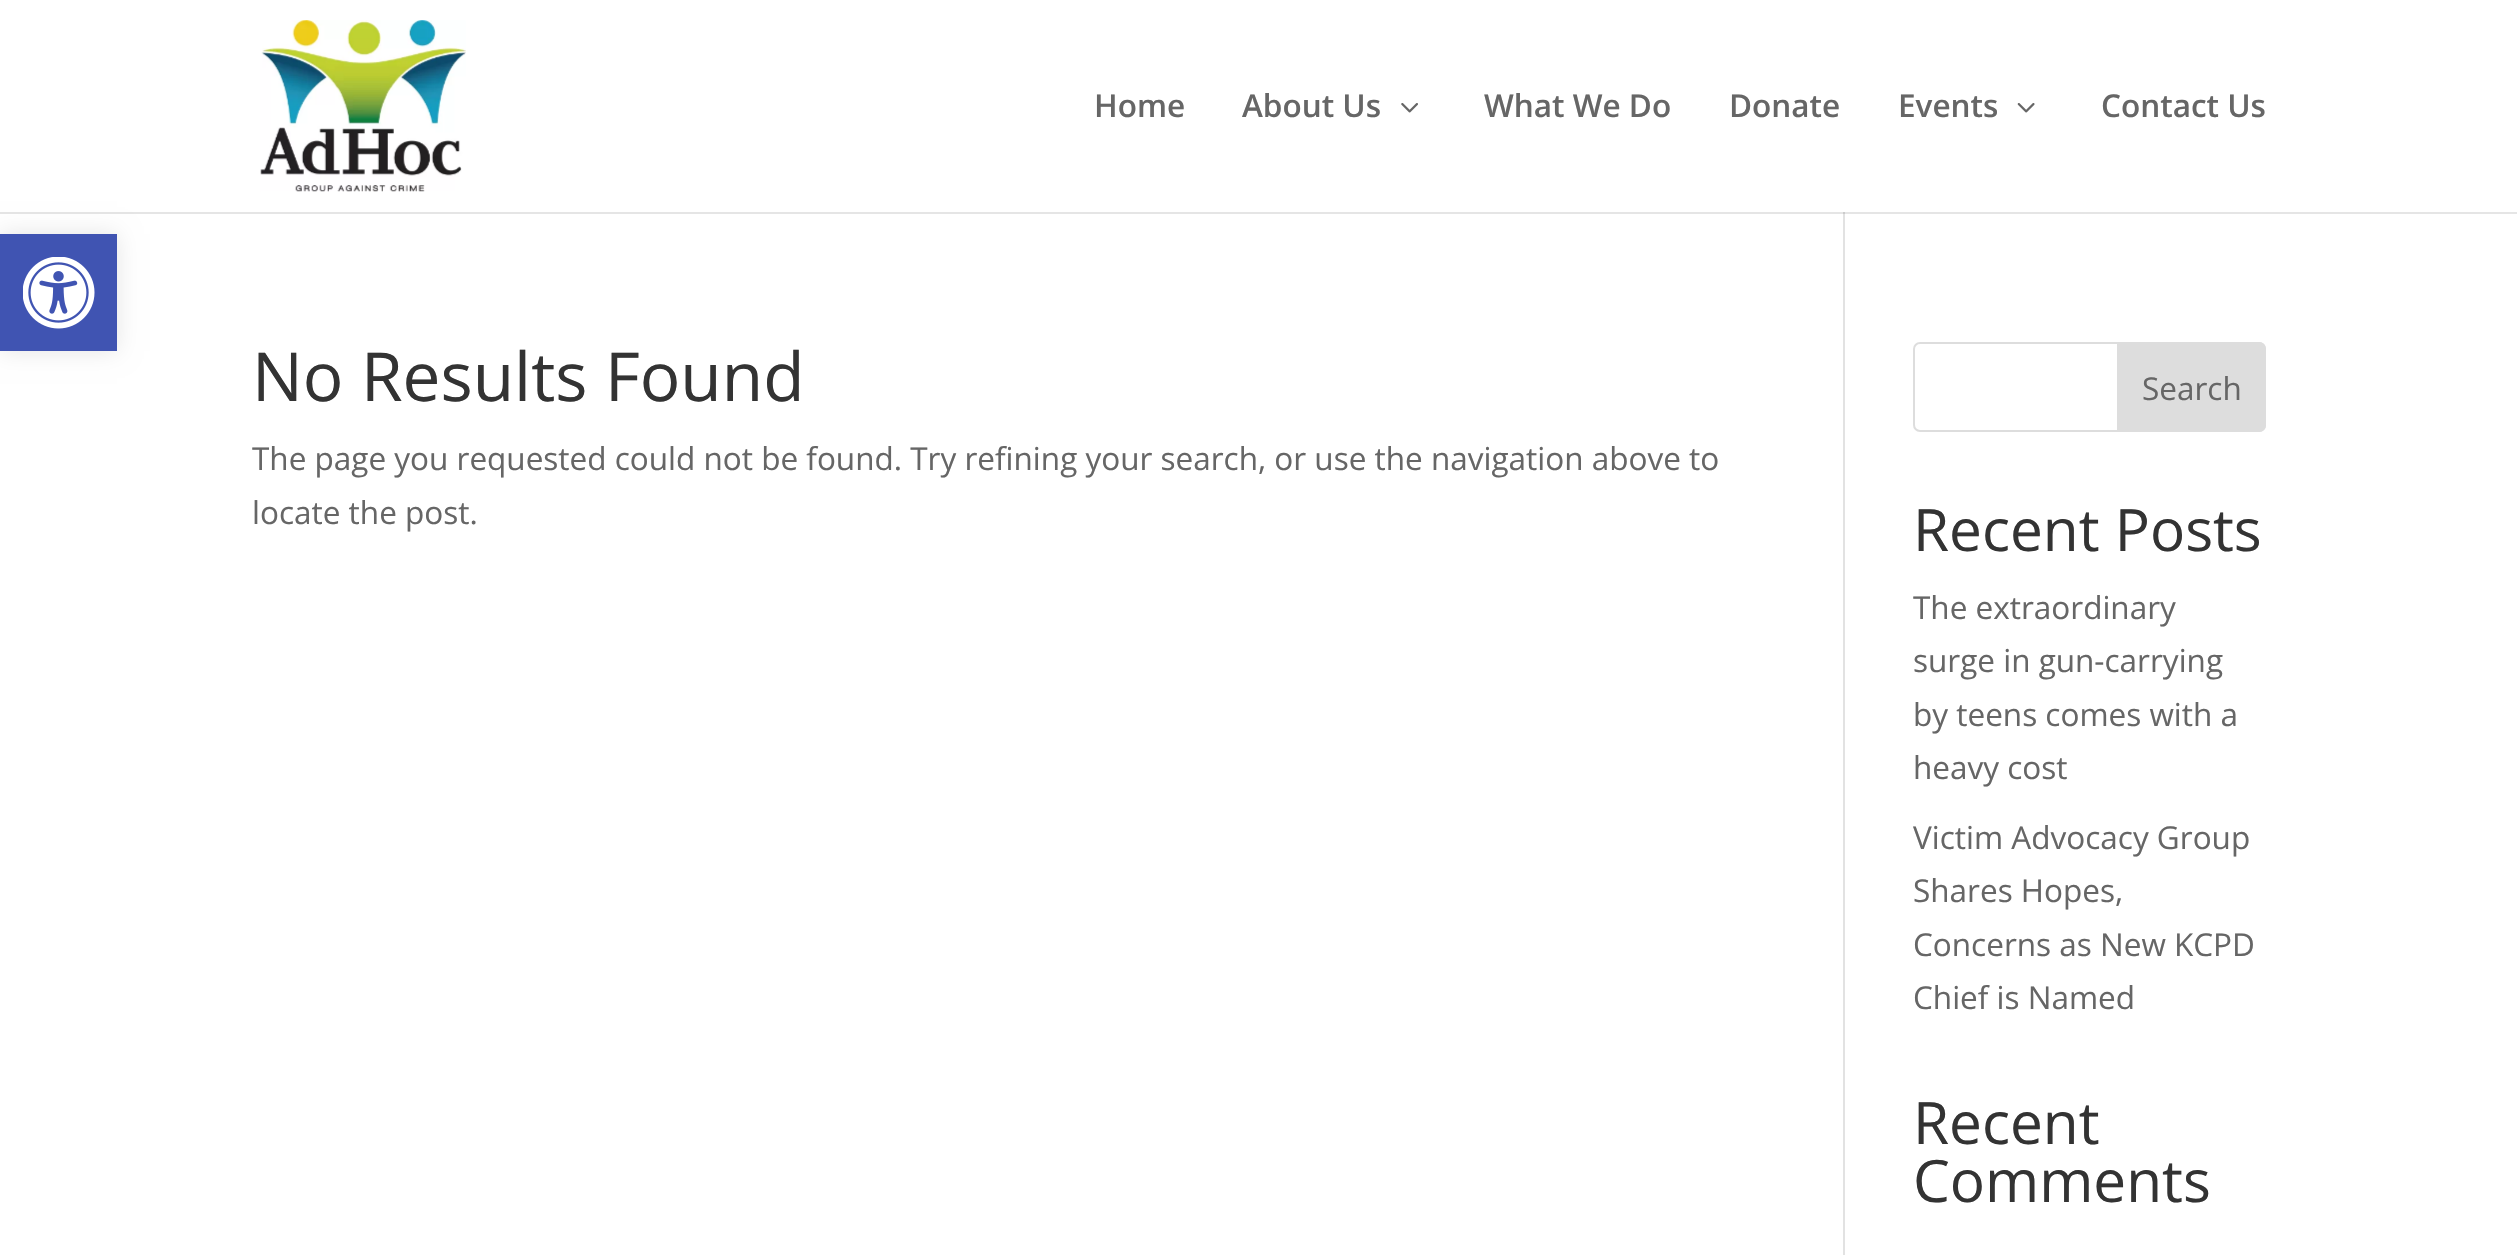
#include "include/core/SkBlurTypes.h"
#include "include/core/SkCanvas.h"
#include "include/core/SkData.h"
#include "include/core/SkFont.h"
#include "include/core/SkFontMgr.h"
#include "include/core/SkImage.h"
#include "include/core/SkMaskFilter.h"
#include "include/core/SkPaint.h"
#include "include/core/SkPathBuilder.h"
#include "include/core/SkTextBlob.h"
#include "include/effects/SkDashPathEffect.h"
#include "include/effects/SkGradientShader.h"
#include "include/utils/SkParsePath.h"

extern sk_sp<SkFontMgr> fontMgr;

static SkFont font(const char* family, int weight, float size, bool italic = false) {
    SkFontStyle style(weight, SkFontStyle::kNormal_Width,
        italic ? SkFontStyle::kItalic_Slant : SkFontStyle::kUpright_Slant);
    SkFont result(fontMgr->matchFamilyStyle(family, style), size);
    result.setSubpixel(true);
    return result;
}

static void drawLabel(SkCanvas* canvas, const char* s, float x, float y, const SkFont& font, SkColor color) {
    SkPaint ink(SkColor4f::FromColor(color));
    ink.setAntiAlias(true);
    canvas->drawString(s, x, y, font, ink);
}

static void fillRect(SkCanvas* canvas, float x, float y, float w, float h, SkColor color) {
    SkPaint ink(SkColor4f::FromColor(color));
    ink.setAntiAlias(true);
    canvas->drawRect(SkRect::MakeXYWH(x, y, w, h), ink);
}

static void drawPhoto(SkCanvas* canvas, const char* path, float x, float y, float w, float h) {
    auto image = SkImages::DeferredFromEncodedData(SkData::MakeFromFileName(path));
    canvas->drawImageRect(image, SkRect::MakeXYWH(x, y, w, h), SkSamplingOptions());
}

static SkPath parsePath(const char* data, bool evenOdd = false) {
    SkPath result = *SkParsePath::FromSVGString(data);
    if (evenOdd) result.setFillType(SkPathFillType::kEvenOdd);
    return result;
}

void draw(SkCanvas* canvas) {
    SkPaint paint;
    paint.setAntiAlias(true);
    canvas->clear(0xFFFFFFFF);
    paint.setColor(0x1A000000);
    paint.setMaskFilter(SkMaskFilter::MakeBlur(kNormal_SkBlurStyle, 11));
    canvas->drawRect(SkRect::MakeXYWH(0, 234, 117, 117), paint);
    paint.setMaskFilter(nullptr);
    fillRect(canvas, 0, 234, 117, 117, 0xFF4054B2);
    drawPhoto(canvas, "assets/img1.png", 23, 257, 72, 72);
    fillRect(canvas, 1843, 212, 2, 1043, 0xFFE2E2E2);
    canvas->drawPath(parsePath("M0 212V214H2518V2V212Z"), paint);
    drawPhoto(canvas, "assets/img2.png", 260, 20, 206, 172);
    SkFont font1 = font("Open Sans", 600, 31.5f);
    drawLabel(canvas, "Home", 1094, 117, font1, 0xFF666666);
    drawLabel(canvas, "About Us", 1242, 117, font1, 0xFF666666);
    drawPhoto(canvas, "assets/img3.png", 1401, 103, 17, 10);
    drawLabel(canvas, "What We Do", 1484, 117, font1, 0xFF666666);
    drawLabel(canvas, "Donate", 1729, 117, font1, 0xFF666666);
    drawLabel(canvas, "Events", 1898, 117, font1, 0xFF666666);
    drawPhoto(canvas, "assets/img4.png", 2017, 103, 18, 10);
    drawLabel(canvas, "Contact Us", 2101, 117, font1, 0xFF666666);
    SkFont font2 = font("Open Sans", 400, 67.5f);
    drawLabel(canvas, "No Results Found", 252, 401, font2, 0xFF333333);
    SkFont font3 = font("Open Sans", 400, 31.5f);
    drawLabel(canvas, "The page you requested could not be found. Try refining your search, or use the navigation above to", 252, 470, font3, 0xFF666666);
    drawLabel(canvas, "locate the post.", 252, 524, font3, 0xFF666666);
    paint.setStroke(true);
    paint.setStrokeWidth(2);
    paint.setColor(0xFFDDDDDD);
    canvas->drawRoundRect(SkRect::MakeXYWH(1914, 343, 351, 88), 6, 6, paint);
    paint.setStroke(false);
    canvas->drawPath(parsePath("M2118 343H2259C2262.5 343 2265 345.5 2265 349V425C2265 428.5 2262.5 431 2259 431H2118Z"), paint);
    paint.setStroke(true);
    canvas->drawPath(parsePath("M2118 343H2259C2262.5 343 2265 345.5 2265 349V425C2265 428.5 2262.5 431 2259 431H2118Z"), paint);
    drawLabel(canvas, "Search", 2142, 400, font3, 0xFF666666);
    SkFont font4 = font("Open Sans", 400, 58.5f);
    drawLabel(canvas, "Recent Posts", 1913, 551, font4, 0xFF333333);
    drawLabel(canvas, "The extraordinary", 1913, 619, font3, 0xFF666666);
    drawLabel(canvas, "surge in gun-carrying", 1913, 672, font3, 0xFF666666);
    drawLabel(canvas, "by teens comes with a", 1913, 726, font3, 0xFF666666);
    drawLabel(canvas, "heavy cost", 1913, 779, font3, 0xFF666666);
    drawLabel(canvas, "Victim Advocacy Group", 1913, 849, font3, 0xFF666666);
    drawLabel(canvas, "Shares Hopes,", 1913, 902, font3, 0xFF666666);
    drawLabel(canvas, "Concerns as New KCPD", 1913, 956, font3, 0xFF666666);
    drawLabel(canvas, "Chief is Named", 1913, 1009, font3, 0xFF666666);
    drawLabel(canvas, "Recent", 1913, 1144, font4, 0xFF333333);
    drawLabel(canvas, "Comments", 1913, 1202, font4, 0xFF333333);
}
